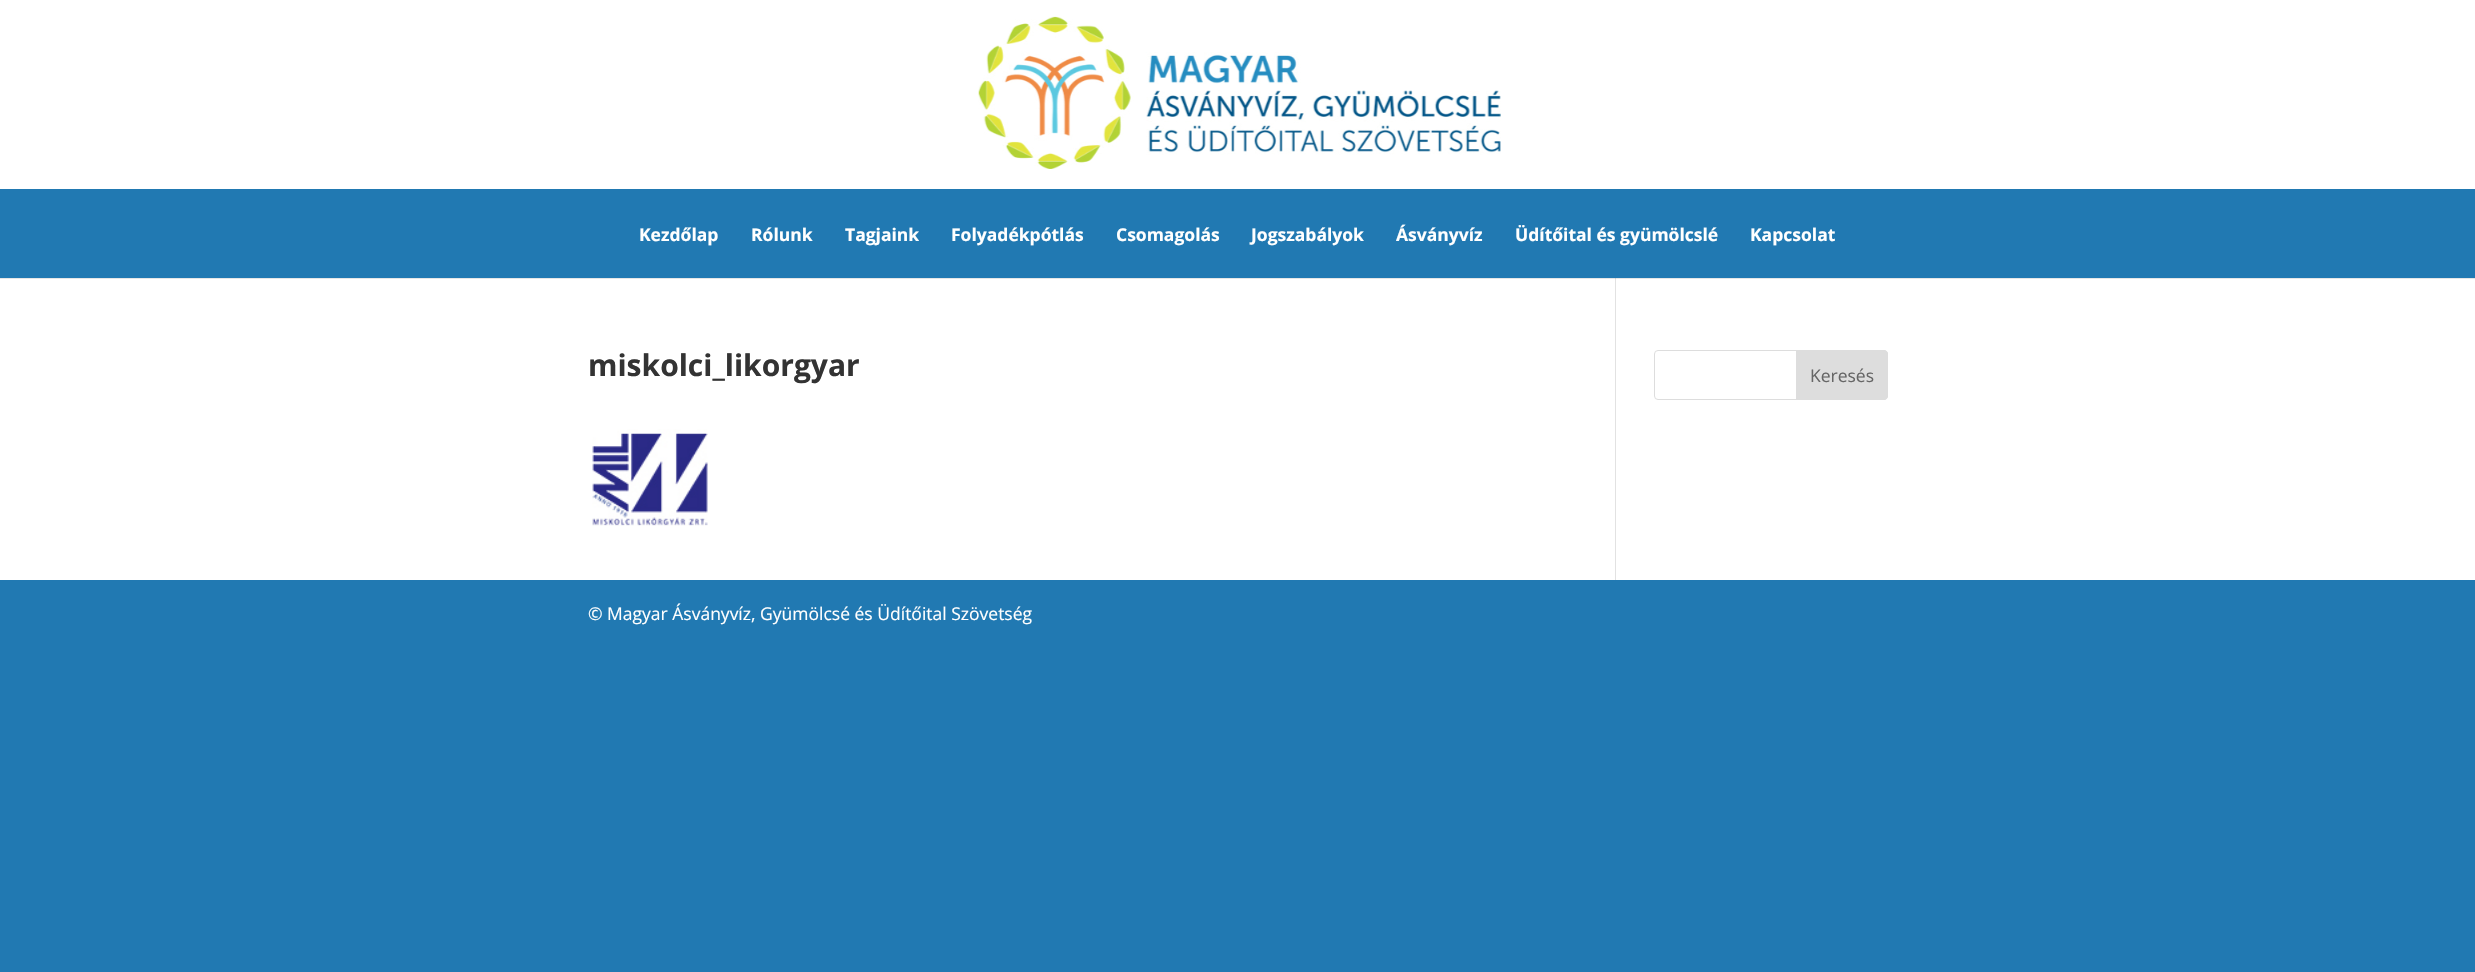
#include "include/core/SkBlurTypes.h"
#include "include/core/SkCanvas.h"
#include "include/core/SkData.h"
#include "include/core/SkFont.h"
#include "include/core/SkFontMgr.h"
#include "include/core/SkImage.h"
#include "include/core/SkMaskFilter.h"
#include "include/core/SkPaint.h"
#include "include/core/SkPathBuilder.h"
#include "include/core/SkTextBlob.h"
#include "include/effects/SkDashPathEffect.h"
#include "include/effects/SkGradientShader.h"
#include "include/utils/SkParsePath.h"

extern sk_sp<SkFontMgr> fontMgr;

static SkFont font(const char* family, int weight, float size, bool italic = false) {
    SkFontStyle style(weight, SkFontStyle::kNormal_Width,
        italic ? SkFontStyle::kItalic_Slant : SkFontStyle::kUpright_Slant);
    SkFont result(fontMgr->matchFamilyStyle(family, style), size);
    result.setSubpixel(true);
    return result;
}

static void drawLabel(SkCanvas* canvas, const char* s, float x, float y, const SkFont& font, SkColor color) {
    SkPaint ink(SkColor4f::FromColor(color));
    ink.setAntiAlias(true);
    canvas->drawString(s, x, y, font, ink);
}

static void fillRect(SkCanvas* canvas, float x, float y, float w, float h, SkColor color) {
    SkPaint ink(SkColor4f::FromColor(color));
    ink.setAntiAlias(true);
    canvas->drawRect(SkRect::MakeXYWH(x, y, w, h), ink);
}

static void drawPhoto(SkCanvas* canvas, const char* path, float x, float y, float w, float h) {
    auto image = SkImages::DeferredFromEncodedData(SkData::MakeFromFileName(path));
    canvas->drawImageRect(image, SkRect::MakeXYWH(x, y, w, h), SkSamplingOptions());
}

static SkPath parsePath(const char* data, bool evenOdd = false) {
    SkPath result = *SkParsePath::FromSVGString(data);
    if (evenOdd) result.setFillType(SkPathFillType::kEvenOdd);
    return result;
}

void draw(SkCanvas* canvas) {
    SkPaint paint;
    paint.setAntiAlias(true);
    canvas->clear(0xFF2179B2);
    fillRect(canvas, 0, 0, 2475, 189, 0xFFFFFFFF);
    drawPhoto(canvas, "assets/img1.png", 978, 16, 523, 153);
    SkFont font1 = font("Open Sans", 700, 17.5f);
    drawLabel(canvas, "Kezdőlap", 639, 241, font1, 0xFFFFFFFF);
    drawLabel(canvas, "Rólunk", 751, 241, font1, 0xFFFFFFFF);
    drawLabel(canvas, "Tagjaink", 845, 241, font1, 0xFFFFFFFF);
    drawLabel(canvas, "Folyadékpótlás", 951, 241, font1, 0xFFFFFFFF);
    drawLabel(canvas, "Csomagolás", 1116, 241, font1, 0xFFFFFFFF);
    drawLabel(canvas, "Jogszabályok", 1251, 241, font1, 0xFFFFFFFF);
    drawLabel(canvas, "Ásványvíz", 1396, 241, font1, 0xFFFFFFFF);
    drawLabel(canvas, "Üdítőital és gyümölcslé", 1515, 241, font1, 0xFFFFFFFF);
    drawLabel(canvas, "Kapcsolat", 1750, 241, font1, 0xFFFFFFFF);
    fillRect(canvas, 0, 279, 2475, 301, 0xFFFFFFFF);
    fillRect(canvas, 0, 278, 2475, 1, 0xFFE6E6E6);
    fillRect(canvas, 1615, 278, 1, 302, 0xFFE2E2E2);
    fillRect(canvas, 1615, 278, 1, 1, 0xFFCBCBCB);
    SkFont font2 = font("Open Sans", 700, 30);
    drawLabel(canvas, "miskolci_likorgyar", 588, 376, font2, 0xFF333333);
    drawPhoto(canvas, "assets/img2.png", 592, 429, 116, 97);
    paint.setStroke(true);
    paint.setStrokeWidth(1);
    paint.setColor(0xFFDDDDDD);
    canvas->drawRoundRect(SkRect::MakeXYWH(1654.5f, 350.5f, 233, 49), 3.5f, 3.5f, paint);
    paint.setStroke(false);
    canvas->drawPath(parsePath("M1796.5 350.5H1884C1886 350.5 1887.5 352 1887.5 354V396C1887.5 398 1886 399.5 1884 399.5H1796.5Z"), paint);
    paint.setStroke(true);
    canvas->drawPath(parsePath("M1796.5 350.5H1884C1886 350.5 1887.5 352 1887.5 354V396C1887.5 398 1886 399.5 1884 399.5H1796.5Z"), paint);
    SkFont font3 = font("Open Sans", 400, 17.5f);
    drawLabel(canvas, "Keresés", 1810, 382, font3, 0xFF666666);
    drawLabel(canvas, "© Magyar Ásványvíz, Gyümölcsé és Üdítőital Szövetség", 588, 620, font3, 0xFFFFFFFF);
}
